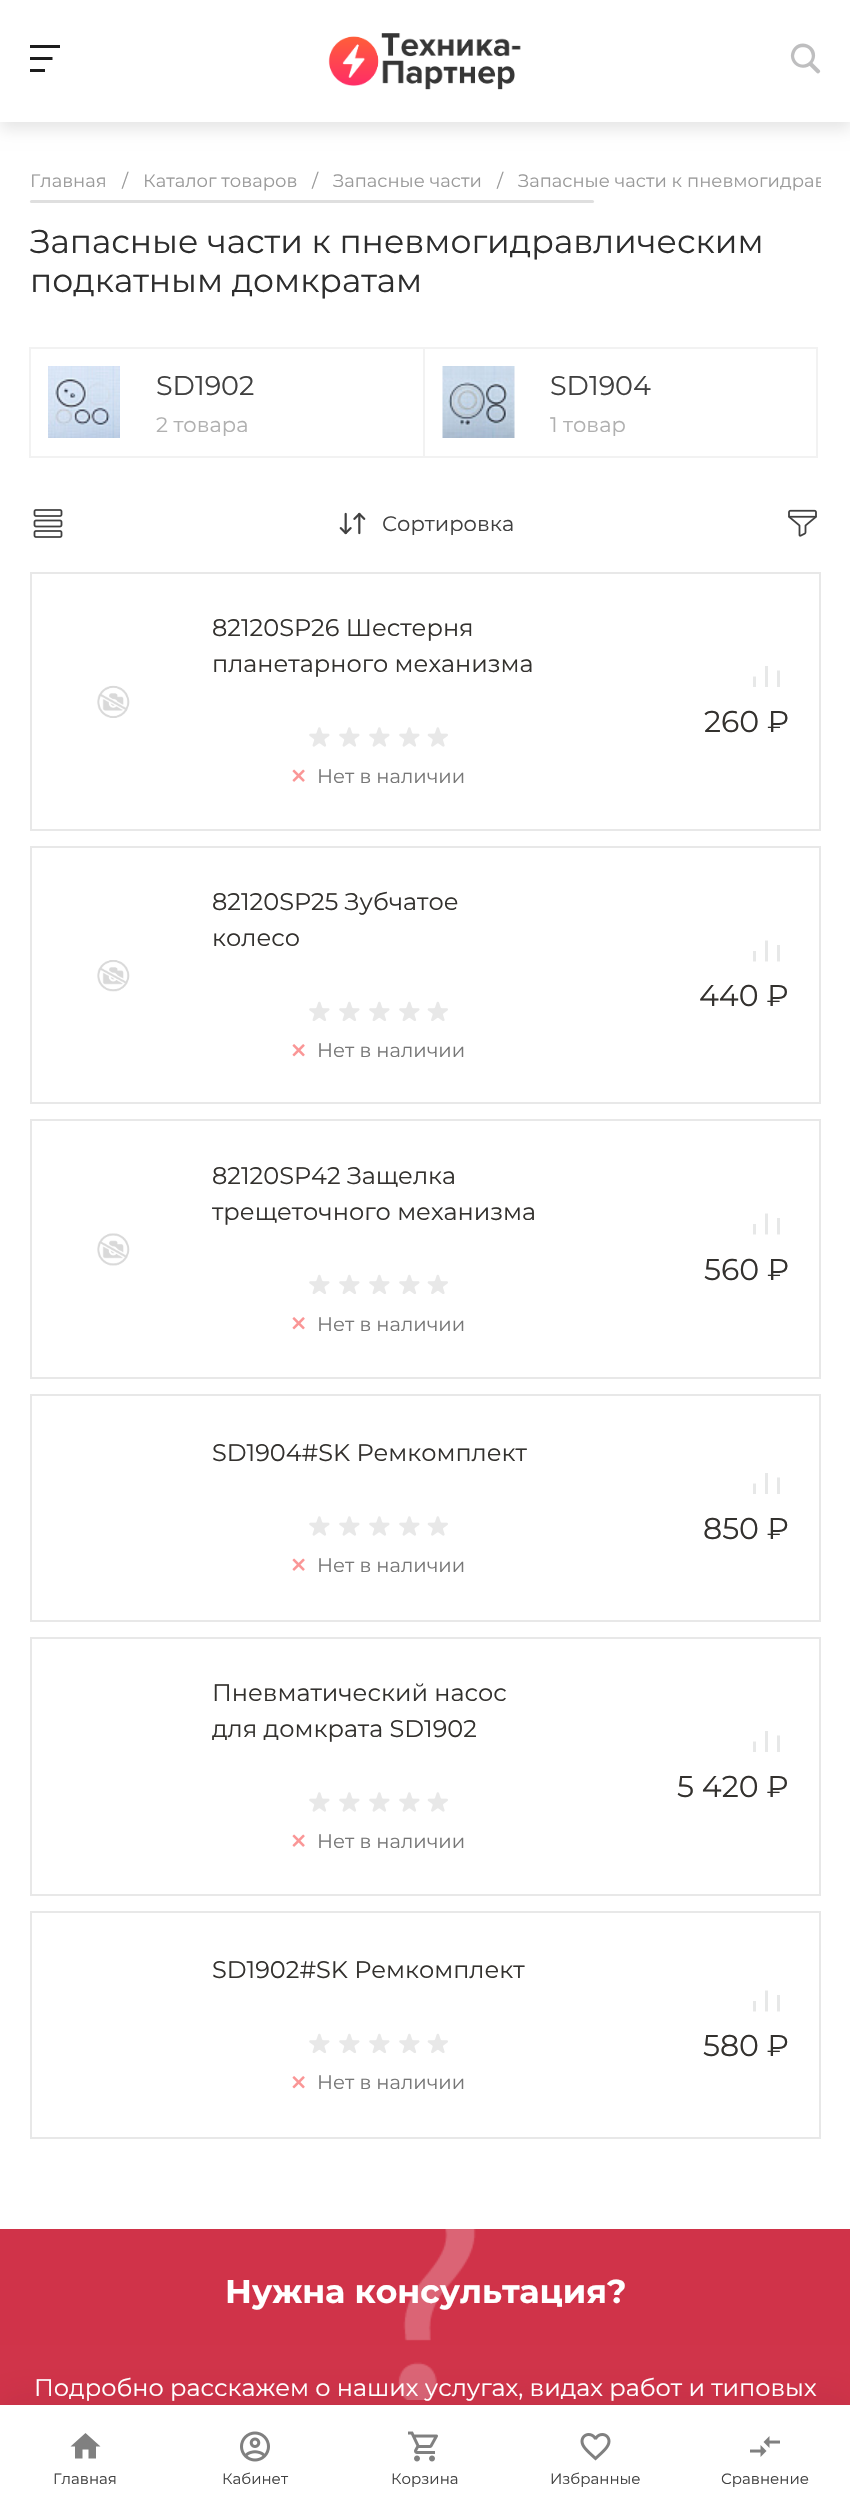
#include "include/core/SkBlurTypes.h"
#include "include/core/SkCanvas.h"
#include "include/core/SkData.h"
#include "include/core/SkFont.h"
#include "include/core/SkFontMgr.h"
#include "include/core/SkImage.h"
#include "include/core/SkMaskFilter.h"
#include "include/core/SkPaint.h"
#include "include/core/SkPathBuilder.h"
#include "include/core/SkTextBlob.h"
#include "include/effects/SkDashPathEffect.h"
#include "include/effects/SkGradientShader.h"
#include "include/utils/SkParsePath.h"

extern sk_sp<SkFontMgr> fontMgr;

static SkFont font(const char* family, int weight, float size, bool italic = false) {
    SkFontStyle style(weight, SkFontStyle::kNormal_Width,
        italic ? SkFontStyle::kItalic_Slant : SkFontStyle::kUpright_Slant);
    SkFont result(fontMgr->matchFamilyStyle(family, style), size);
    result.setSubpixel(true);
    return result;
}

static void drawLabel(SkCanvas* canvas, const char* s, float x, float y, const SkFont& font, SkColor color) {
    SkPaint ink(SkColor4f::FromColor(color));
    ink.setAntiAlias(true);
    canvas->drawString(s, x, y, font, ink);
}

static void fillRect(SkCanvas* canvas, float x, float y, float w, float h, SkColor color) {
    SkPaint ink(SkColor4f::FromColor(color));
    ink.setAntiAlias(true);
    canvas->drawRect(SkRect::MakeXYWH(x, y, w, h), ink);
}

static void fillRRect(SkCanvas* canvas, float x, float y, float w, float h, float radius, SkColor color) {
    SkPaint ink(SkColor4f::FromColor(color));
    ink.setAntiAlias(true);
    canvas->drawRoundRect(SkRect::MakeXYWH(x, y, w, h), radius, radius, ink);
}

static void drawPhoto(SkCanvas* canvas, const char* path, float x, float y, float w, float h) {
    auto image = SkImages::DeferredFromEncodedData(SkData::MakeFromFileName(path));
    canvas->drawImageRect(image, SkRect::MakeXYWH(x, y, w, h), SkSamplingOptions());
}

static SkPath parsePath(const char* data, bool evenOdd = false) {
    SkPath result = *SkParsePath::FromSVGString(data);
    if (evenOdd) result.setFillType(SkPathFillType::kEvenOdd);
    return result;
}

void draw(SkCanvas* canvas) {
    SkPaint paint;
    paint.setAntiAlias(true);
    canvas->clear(0xFFFFFFFF);
    paint.setColor(0x1A000000);
    paint.setMaskFilter(SkMaskFilter::MakeBlur(kNormal_SkBlurStyle, 7.5f));
    canvas->drawRect(SkRect::MakeXYWH(0, 8, 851, 121), paint);
    paint.setMaskFilter(nullptr);
    fillRect(canvas, 0, 0, 850, 122, 0xFFFFFFFF);
    drawPhoto(canvas, "assets/img1.png", 30, 45, 30, 27);
    drawPhoto(canvas, "assets/img2.png", 328, 33, 193, 57);
    drawPhoto(canvas, "assets/img3.png", 790, 43, 31, 31);
    SkFont font1 = font("Montserrat", 400, 18);
    drawLabel(canvas, "Главная", 30, 187, font1, 0xFF9A9A9A);
    drawLabel(canvas, "/", 122, 187, font1, 0xFF9A9A9A);
    drawLabel(canvas, "Каталог товаров", 143, 187, font1, 0xFF9A9A9A);
    drawLabel(canvas, "/", 312, 187, font1, 0xFF9A9A9A);
    drawLabel(canvas, "Запасные части", 333, 187, font1, 0xFF9A9A9A);
    drawLabel(canvas, "/", 497, 187, font1, 0xFF9A9A9A);
    drawLabel(canvas, "Запасные части к", 518, 187, font1, 0xFF9A9A9A);
    canvas->save();
    canvas->clipRect(SkRect::MakeXYWH(30, 167, 791, 39));
    drawLabel(canvas, "пневмогидрав", 687, 187, font1, 0xFF9A9A9A);
    canvas->restore();
    fillRRect(canvas, 30, 200, 564, 3, 1.5f, 0xFFDFDFDF);
    SkFont font2 = font("Montserrat", 400, 33);
    drawLabel(canvas, "Запасные части к пневмогидравлическим", 30, 253, font2, 0xFF2D2D2D);
    drawLabel(canvas, "подкатным домкратам", 30, 292, font2, 0xFF2D2D2D);
    fillRect(canvas, 0, 2229, 850, 176, 0xFFD03349);
    SkFont font3 = font("Montserrat", 700, 33);
    drawLabel(canvas, "Нужна консультация?", 225, 2303, font3, 0xFFFFFFFF);
    drawPhoto(canvas, "assets/img24.png", 398, 2229, 78, 171);
    paint.setColor(0x141B1E25);
    paint.setMaskFilter(SkMaskFilter::MakeBlur(kNormal_SkBlurStyle, 18));
    canvas->drawRect(SkRect::MakeXYWH(0, 2399, 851, 111), paint);
    paint.setMaskFilter(nullptr);
    fillRect(canvas, 0, 2405, 850, 110, 0xFFFFFFFF);
    paint.setColor(0xFF808080);
    canvas->drawPath(parsePath("M82.5 2458.5V2449.5H88.5V2458.5H96V2446.5H100.5L85.5 2433L70.5 2446.5H75V2458.5Z"), paint);
    SkFont font4 = font("Montserrat", 400, 15);
    drawLabel(canvas, "Главная", 53, 2484, font4, 0xFF404040);
    drawPhoto(canvas, "assets/img4.png", 240, 2431, 30, 31);
    drawLabel(canvas, "Кабинет", 222, 2484, font4, 0xFF404040);
    drawPhoto(canvas, "assets/img5.png", 408, 2431, 30, 31);
    drawLabel(canvas, "Корзина", 391, 2484, font4, 0xFF404040);
    drawPhoto(canvas, "assets/img6.png", 580, 2433, 31, 28);
    drawLabel(canvas, "Избранные", 550, 2484, font4, 0xFF404040);
    drawPhoto(canvas, "assets/img7.png", 750, 2436, 30, 21);
    drawLabel(canvas, "Сравнение", 721, 2484, font4, 0xFF404040);
    paint.setStroke(true);
    paint.setStrokeWidth(2);
    paint.setColor(0xFFF2F2F2);
    canvas->drawRect(SkRect::MakeXYWH(30, 348, 394, 109), paint);
    drawPhoto(canvas, "assets/img8.png", 48, 366, 72, 72);
    SkFont font5 = font("Montserrat", 400, 27);
    drawLabel(canvas, "SD1902", 156, 395, font5, 0xFF404040);
    SkFont font6 = font("Montserrat", 400, 21);
    drawLabel(canvas, "2 товара", 156, 432, font6, 0xFFB0B0B0);
    canvas->drawRect(SkRect::MakeXYWH(424, 348, 393, 109), paint);
    drawPhoto(canvas, "assets/img9.png", 442, 366, 73, 72);
    drawLabel(canvas, "SD1904", 550, 395, font5, 0xFF404040);
    drawLabel(canvas, "1 товар", 550, 432, font6, 0xFFB0B0B0);
    drawPhoto(canvas, "assets/img10.png", 33, 509, 30, 29);
    drawPhoto(canvas, "assets/img11.png", 339, 512, 27, 23);
    drawLabel(canvas, "Сортировка", 382, 531, font6, 0xFF404040);
    drawPhoto(canvas, "assets/img12.png", 788, 509, 29, 28);
    paint.setColor(0xFFE8E8E8);
    canvas->drawRect(SkRect::MakeXYWH(31, 573, 789, 257), paint);
    drawPhoto(canvas, "assets/img13.png", 97, 685, 33, 33);
    SkFont font7 = font("Montserrat", 400, 24);
    drawLabel(canvas, "82120SP26 Шестерня", 212, 636, font7, 0xFF33312E);
    drawLabel(canvas, "планетарного механизма", 212, 672, font7, 0xFF33312E);
    drawPhoto(canvas, "assets/img14.png", 309, 727, 21, 20);
    drawPhoto(canvas, "assets/img14.png", 339, 727, 21, 20);
    drawPhoto(canvas, "assets/img14.png", 369, 727, 21, 20);
    drawPhoto(canvas, "assets/img14.png", 399, 727, 21, 20);
    drawPhoto(canvas, "assets/img15.png", 427, 727, 21, 20);
    drawPhoto(canvas, "assets/img16.png", 292, 769, 13, 13);
    SkFont font8 = font("Montserrat", 400, 19.5f);
    drawLabel(canvas, "Нет в наличии", 317, 783, font8, 0xFF777777);
    drawPhoto(canvas, "assets/img17.png", 753, 666, 27, 21);
    SkFont font9 = font("Montserrat", 400, 30);
    drawLabel(canvas, "260 ₽", 704, 732, font9, 0xFF33312E);
    canvas->drawRect(SkRect::MakeXYWH(31, 847, 789, 256), paint);
    drawPhoto(canvas, "assets/img18.png", 97, 960, 33, 32);
    drawLabel(canvas, "82120SP25 Зубчатое", 212, 910, font7, 0xFF33312E);
    drawLabel(canvas, "колесо", 212, 946, font7, 0xFF33312E);
    drawPhoto(canvas, "assets/img19.png", 309, 1001, 21, 20);
    drawPhoto(canvas, "assets/img19.png", 339, 1001, 21, 20);
    drawPhoto(canvas, "assets/img19.png", 369, 1001, 21, 20);
    drawPhoto(canvas, "assets/img19.png", 399, 1001, 21, 20);
    drawPhoto(canvas, "assets/img20.png", 427, 1001, 21, 20);
    drawPhoto(canvas, "assets/img21.png", 292, 1044, 13, 13);
    drawLabel(canvas, "Нет в наличии", 317, 1057, font8, 0xFF777777);
    drawPhoto(canvas, "assets/img22.png", 753, 940, 27, 22);
    drawLabel(canvas, "440 ₽", 699, 1006, font9, 0xFF33312E);
    canvas->drawRect(SkRect::MakeXYWH(31, 1120, 789, 258), paint);
    drawPhoto(canvas, "assets/img23.png", 97, 1233, 33, 33);
    drawLabel(canvas, "82120SP42 Защелка", 212, 1184, font7, 0xFF33312E);
    drawLabel(canvas, "трещеточного механизма", 212, 1220, font7, 0xFF33312E);
    drawPhoto(canvas, "assets/img19.png", 309, 1274, 21, 20);
    drawPhoto(canvas, "assets/img19.png", 339, 1274, 21, 20);
    drawPhoto(canvas, "assets/img19.png", 369, 1274, 21, 20);
    drawPhoto(canvas, "assets/img19.png", 399, 1274, 21, 20);
    drawPhoto(canvas, "assets/img20.png", 427, 1274, 21, 20);
    drawPhoto(canvas, "assets/img21.png", 292, 1317, 13, 13);
    drawLabel(canvas, "Нет в наличии", 317, 1331, font8, 0xFF777777);
    drawPhoto(canvas, "assets/img22.png", 753, 1213, 27, 22);
    drawLabel(canvas, "560 ₽", 704, 1280, font9, 0xFF33312E);
    canvas->drawRect(SkRect::MakeXYWH(31, 1395, 789, 226), paint);
    drawLabel(canvas, "SD1904#SK Ремкомплект", 212, 1461, font7, 0xFF33312E);
    drawPhoto(canvas, "assets/img14.png", 309, 1516, 21, 20);
    drawPhoto(canvas, "assets/img14.png", 339, 1516, 21, 20);
    drawPhoto(canvas, "assets/img14.png", 369, 1516, 21, 20);
    drawPhoto(canvas, "assets/img14.png", 399, 1516, 21, 20);
    drawPhoto(canvas, "assets/img15.png", 427, 1516, 21, 20);
    drawPhoto(canvas, "assets/img16.png", 292, 1558, 13, 13);
    drawLabel(canvas, "Нет в наличии", 317, 1572, font8, 0xFF777777);
    drawPhoto(canvas, "assets/img17.png", 753, 1473, 27, 21);
    drawLabel(canvas, "850 ₽", 703, 1539, font9, 0xFF33312E);
    canvas->drawRect(SkRect::MakeXYWH(31, 1638, 789, 257), paint);
    drawLabel(canvas, "Пневматический насос", 212, 1701, font7, 0xFF33312E);
    drawLabel(canvas, "для домкрата SD1902", 212, 1737, font7, 0xFF33312E);
    drawPhoto(canvas, "assets/img14.png", 309, 1792, 21, 20);
    drawPhoto(canvas, "assets/img14.png", 339, 1792, 21, 20);
    drawPhoto(canvas, "assets/img14.png", 369, 1792, 21, 20);
    drawPhoto(canvas, "assets/img14.png", 399, 1792, 21, 20);
    drawPhoto(canvas, "assets/img15.png", 427, 1792, 21, 20);
    drawPhoto(canvas, "assets/img16.png", 292, 1834, 13, 13);
    drawLabel(canvas, "Нет в наличии", 317, 1848, font8, 0xFF777777);
    drawPhoto(canvas, "assets/img17.png", 753, 1731, 27, 21);
    drawLabel(canvas, "5 420 ₽", 677, 1797, font9, 0xFF33312E);
    canvas->drawRect(SkRect::MakeXYWH(31, 1912, 789, 226), paint);
    drawLabel(canvas, "SD1902#SK Ремкомплект", 212, 1978, font7, 0xFF33312E);
    drawPhoto(canvas, "assets/img19.png", 309, 2033, 21, 20);
    drawPhoto(canvas, "assets/img19.png", 339, 2033, 21, 20);
    drawPhoto(canvas, "assets/img19.png", 369, 2033, 21, 20);
    drawPhoto(canvas, "assets/img19.png", 399, 2033, 21, 20);
    drawPhoto(canvas, "assets/img20.png", 427, 2033, 21, 20);
    drawPhoto(canvas, "assets/img21.png", 292, 2076, 13, 13);
    drawLabel(canvas, "Нет в наличии", 317, 2089, font8, 0xFF777777);
    drawPhoto(canvas, "assets/img22.png", 753, 1990, 27, 22);
    drawLabel(canvas, "580 ₽", 703, 2056, font9, 0xFF33312E);
    drawLabel(canvas, "Подробно расскажем о наших услугах, видах работ и типовых", 34, 2396, font7, 0xFFFFFFFF);
}
